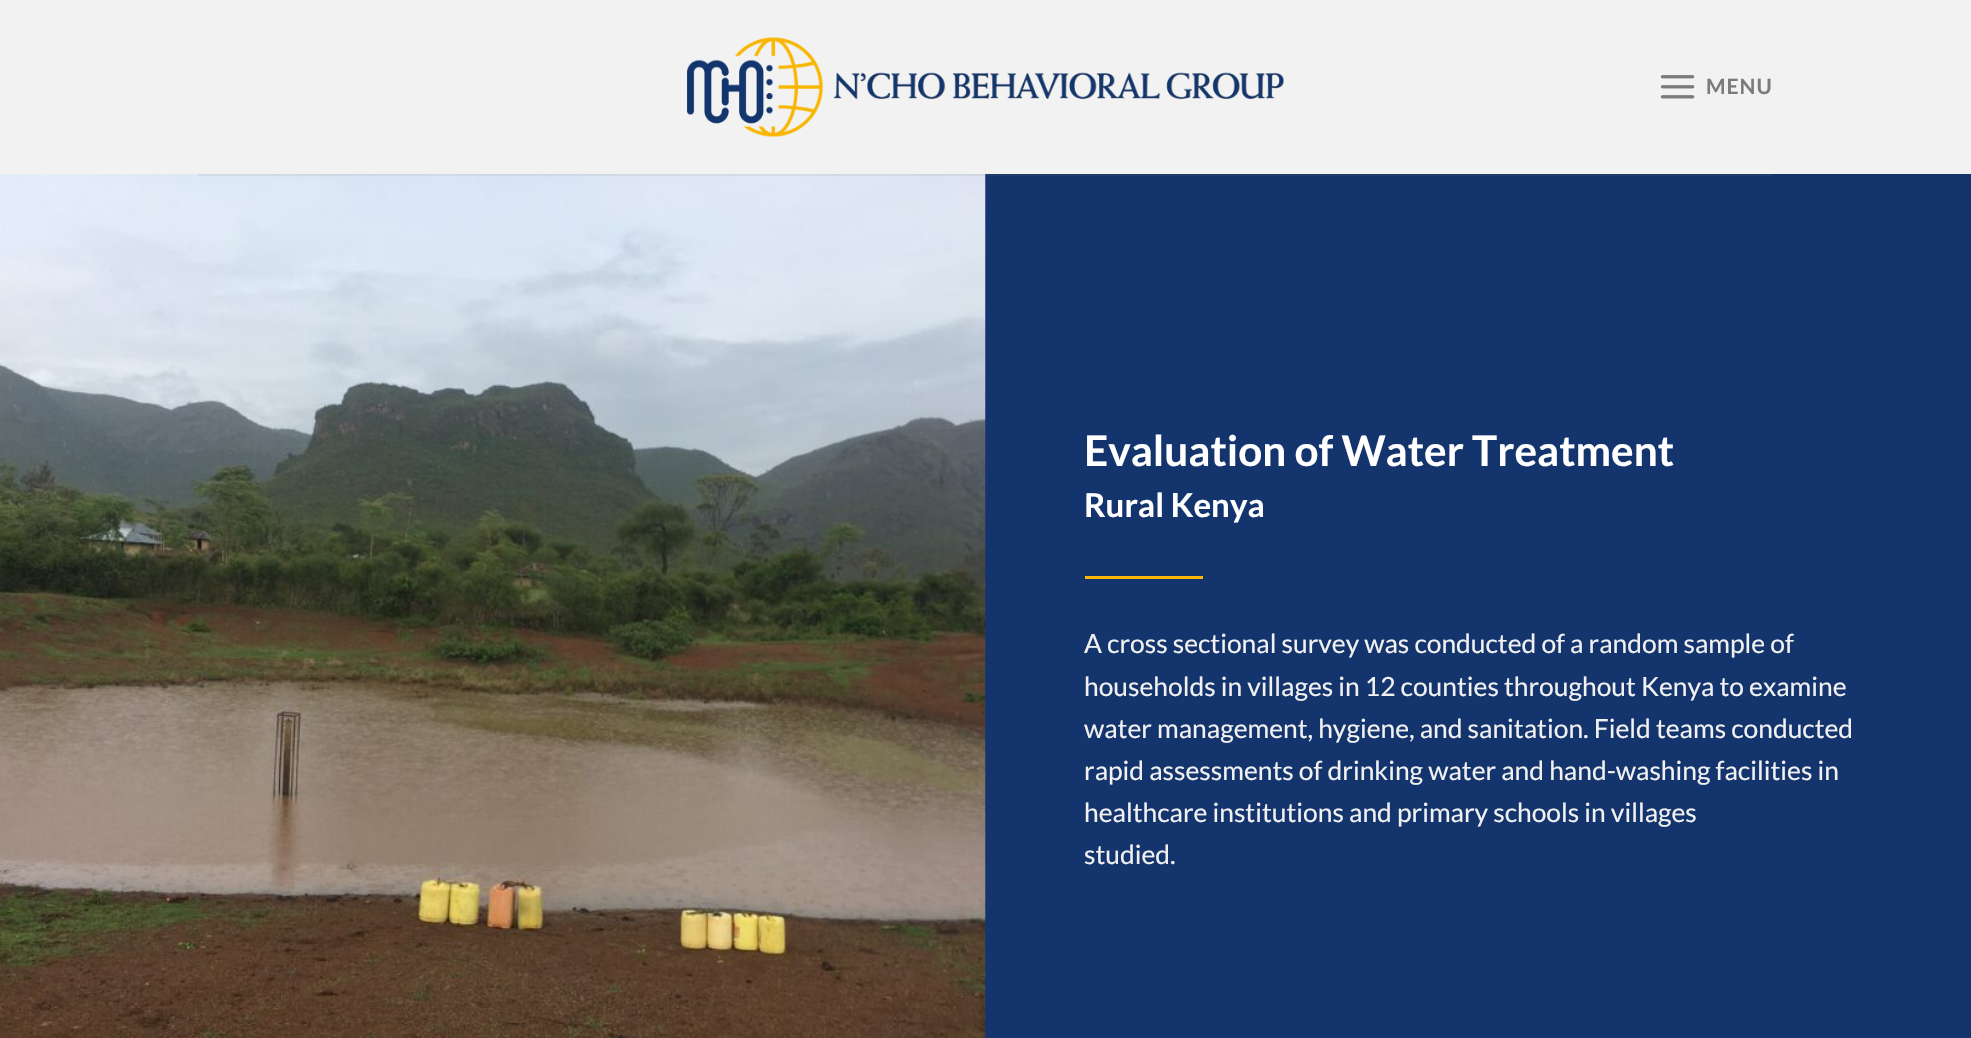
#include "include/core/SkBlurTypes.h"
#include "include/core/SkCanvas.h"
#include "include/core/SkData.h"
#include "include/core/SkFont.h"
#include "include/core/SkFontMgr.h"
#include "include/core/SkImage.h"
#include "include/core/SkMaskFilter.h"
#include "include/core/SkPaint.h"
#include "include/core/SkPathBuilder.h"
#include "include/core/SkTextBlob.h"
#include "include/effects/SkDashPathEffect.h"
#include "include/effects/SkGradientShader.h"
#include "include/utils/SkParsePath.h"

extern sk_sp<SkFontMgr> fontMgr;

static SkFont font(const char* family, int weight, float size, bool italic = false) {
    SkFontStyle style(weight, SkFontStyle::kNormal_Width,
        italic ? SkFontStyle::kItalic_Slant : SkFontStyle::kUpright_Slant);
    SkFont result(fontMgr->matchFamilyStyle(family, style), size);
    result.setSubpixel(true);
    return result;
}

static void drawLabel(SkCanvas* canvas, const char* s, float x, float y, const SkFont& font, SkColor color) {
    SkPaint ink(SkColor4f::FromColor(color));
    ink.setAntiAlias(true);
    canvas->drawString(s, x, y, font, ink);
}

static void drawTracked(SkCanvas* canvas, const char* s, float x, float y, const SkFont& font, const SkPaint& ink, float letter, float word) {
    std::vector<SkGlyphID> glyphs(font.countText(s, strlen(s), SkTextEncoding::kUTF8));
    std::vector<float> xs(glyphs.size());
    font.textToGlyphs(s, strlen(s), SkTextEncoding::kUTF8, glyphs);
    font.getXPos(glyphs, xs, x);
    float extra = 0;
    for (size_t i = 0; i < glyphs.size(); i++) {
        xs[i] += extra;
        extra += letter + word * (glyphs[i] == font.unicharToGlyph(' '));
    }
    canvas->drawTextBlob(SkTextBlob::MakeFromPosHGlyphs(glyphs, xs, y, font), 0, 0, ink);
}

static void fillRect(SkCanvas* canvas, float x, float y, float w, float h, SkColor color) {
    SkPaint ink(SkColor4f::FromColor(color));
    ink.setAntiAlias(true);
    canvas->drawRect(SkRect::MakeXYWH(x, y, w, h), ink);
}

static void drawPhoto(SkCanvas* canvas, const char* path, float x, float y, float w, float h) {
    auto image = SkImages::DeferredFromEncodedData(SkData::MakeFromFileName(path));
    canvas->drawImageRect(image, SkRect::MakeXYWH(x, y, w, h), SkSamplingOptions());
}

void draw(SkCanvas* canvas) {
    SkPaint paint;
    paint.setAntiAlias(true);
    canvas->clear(0xFF14346D);
    fillRect(canvas, 0, 0, 1971, 174, 0xFFF2F2F2);
    drawPhoto(canvas, "assets/img1.png", 687, 37, 597, 100);
    drawPhoto(canvas, "assets/img2.png", 1660, 75, 35, 24);
    SkFont font1 = font("Lato", 700, 21);
    paint.setColor(0xFF7B7B7B);
    drawTracked(canvas, "MENU", 1706, 94, font1, paint, 1, 0);
    drawPhoto(canvas, "assets/img3.png", 0, 174, 986, 864);
    fillRect(canvas, 198, 174, 1575, 2, 0x1A777777);
    SkFont font2 = font("Lato", 700, 42.25f);
    drawLabel(canvas, "Evaluation of Water Treatment", 1084, 466, font2, 0xFFFFFFFF);
    SkFont font3 = font("Lato", 700, 33);
    drawLabel(canvas, "Rural Kenya", 1084, 517, font3, 0xFFFFFFFF);
    fillRect(canvas, 1085, 576, 118, 3, 0xFFF8B600);
    SkFont font4 = font("Lato", 400, 26.4f);
    drawLabel(canvas, "A cross sectional survey was conducted of a random sample of", 1084, 653, font4, 0xFFF1F1F1);
    drawLabel(canvas, "households in villages in 12 counties throughout Kenya to examine", 1084, 696, font4, 0xFFF1F1F1);
    drawLabel(canvas, "water management, hygiene, and sanitation. Field teams conducted", 1084, 738, font4, 0xFFF1F1F1);
    drawLabel(canvas, "rapid assessments of drinking water and hand-washing facilities in", 1084, 780, font4, 0xFFF1F1F1);
    drawLabel(canvas, "healthcare institutions and primary schools in villages", 1084, 822, font4, 0xFFF1F1F1);
    drawLabel(canvas, "studied.", 1084, 864, font4, 0xFFF1F1F1);
}
